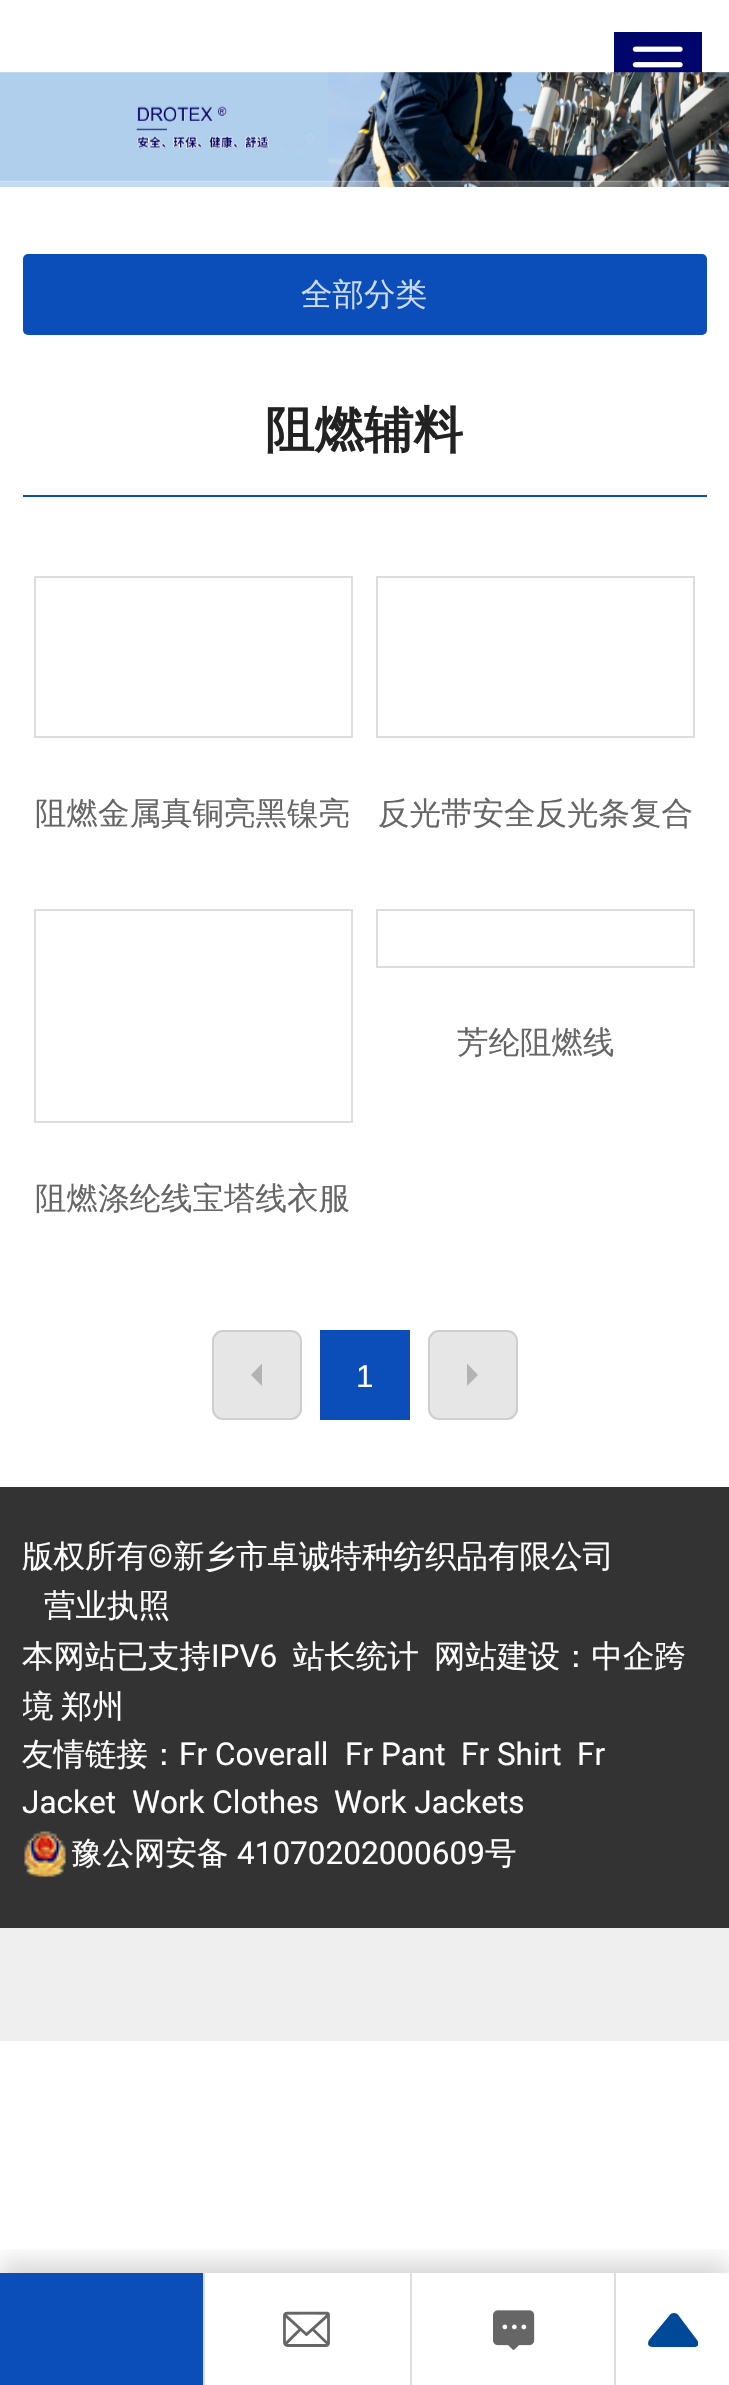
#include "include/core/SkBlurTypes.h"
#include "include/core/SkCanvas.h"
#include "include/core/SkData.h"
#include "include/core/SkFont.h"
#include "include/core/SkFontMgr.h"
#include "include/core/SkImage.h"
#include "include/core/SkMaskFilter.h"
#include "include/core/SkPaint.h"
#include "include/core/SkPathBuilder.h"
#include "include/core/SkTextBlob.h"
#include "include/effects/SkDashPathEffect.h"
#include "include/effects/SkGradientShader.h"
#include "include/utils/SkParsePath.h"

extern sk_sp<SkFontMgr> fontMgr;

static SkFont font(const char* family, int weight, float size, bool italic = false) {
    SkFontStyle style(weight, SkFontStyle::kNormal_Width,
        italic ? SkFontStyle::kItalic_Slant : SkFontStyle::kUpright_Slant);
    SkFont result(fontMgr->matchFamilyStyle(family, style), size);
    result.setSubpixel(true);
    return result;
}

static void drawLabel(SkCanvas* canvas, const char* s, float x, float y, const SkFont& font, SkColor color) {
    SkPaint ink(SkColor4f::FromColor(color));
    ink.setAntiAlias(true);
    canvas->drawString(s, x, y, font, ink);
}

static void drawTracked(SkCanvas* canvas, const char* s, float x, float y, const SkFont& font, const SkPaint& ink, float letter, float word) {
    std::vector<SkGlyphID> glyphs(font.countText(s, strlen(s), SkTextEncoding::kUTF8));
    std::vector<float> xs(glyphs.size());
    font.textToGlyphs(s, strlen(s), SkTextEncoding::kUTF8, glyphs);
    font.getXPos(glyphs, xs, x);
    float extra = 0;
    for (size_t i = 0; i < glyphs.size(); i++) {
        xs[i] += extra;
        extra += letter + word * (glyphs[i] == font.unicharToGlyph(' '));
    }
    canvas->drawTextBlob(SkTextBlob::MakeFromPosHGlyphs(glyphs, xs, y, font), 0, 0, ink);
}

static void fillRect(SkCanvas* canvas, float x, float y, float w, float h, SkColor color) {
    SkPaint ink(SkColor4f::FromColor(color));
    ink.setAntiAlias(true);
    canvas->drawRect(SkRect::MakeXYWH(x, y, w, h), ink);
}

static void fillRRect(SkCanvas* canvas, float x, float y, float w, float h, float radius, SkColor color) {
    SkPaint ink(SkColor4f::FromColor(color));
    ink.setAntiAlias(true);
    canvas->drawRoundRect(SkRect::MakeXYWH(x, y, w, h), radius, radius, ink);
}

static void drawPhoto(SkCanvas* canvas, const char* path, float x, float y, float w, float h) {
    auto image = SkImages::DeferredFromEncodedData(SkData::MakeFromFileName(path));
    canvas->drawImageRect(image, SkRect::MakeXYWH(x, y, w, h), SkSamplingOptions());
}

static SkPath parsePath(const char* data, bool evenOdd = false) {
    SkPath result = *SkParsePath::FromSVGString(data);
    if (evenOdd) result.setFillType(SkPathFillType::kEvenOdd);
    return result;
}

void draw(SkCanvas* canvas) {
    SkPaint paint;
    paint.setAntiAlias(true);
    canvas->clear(0xFFFFFFFF);
    fillRect(canvas, 614, 32, 88, 41, 0xFF00056B);
    drawPhoto(canvas, "assets/img1.png", 632, 46, 51, 22);
    drawPhoto(canvas, "assets/img2.png", 0, 72, 729, 115);
    fillRRect(canvas, 23, 254, 684, 81, 5, 0xFF0B4DB9);
    SkFont font1 = font("WenQuanYi Zen Hei", 500, 31.5f);
    drawLabel(canvas, "全部分类", 301, 305, font1, 0xFFCEDBF1);
    SkFont font2 = font("WenQuanYi Zen Hei", 700, 49.5f);
    drawLabel(canvas, "阻燃辅料", 265, 447, font2, 0xFF222222);
    fillRect(canvas, 23, 495, 684, 2, 0xFF0B4DB9);
    paint.setStroke(true);
    paint.setStrokeWidth(2);
    paint.setColor(0xFFDDDDDD);
    canvas->drawRect(SkRect::MakeXYWH(35, 577, 317, 160), paint);
    drawLabel(canvas, "阻燃金属真铜亮黑镍亮", 35, 824, font1, 0xFF666666);
    canvas->drawRect(SkRect::MakeXYWH(377, 577, 317, 160), paint);
    drawLabel(canvas, "反光带安全反光条复合", 378, 824, font1, 0xFF666666);
    canvas->drawRect(SkRect::MakeXYWH(377, 910, 317, 57), paint);
    drawLabel(canvas, "芳纶阻燃线", 457, 1053, font1, 0xFF666666);
    canvas->drawRect(SkRect::MakeXYWH(35, 910, 317, 212), paint);
    drawLabel(canvas, "阻燃涤纶线宝塔线衣服", 35, 1209, font1, 0xFF666666);
    fillRRect(canvas, 212, 1330, 90, 90, 11, 0xFFE6E6E6);
    paint.setColor(0x1A000000);
    canvas->drawRoundRect(SkRect::MakeXYWH(213, 1331, 88, 88), 10, 10, paint);
    paint.setStroke(false);
    paint.setColor(0xFFB3B3B3);
    canvas->drawPath(parsePath("M262 1363.5V1386L251 1375Z"), paint);
    fillRect(canvas, 320, 1330, 90, 90, 0xFF0B4DB9);
    SkFont font3 = font("Liberation Sans", 400, 31.5f);
    drawLabel(canvas, "1", 356, 1387, font3, 0xFFFFFFFF);
    fillRRect(canvas, 428, 1330, 90, 90, 11, 0xFFE6E6E6);
    paint.setStroke(true);
    paint.setColor(0x1A000000);
    canvas->drawRoundRect(SkRect::MakeXYWH(429, 1331, 88, 88), 10, 10, paint);
    paint.setStroke(false);
    paint.setColor(0xFFB3B3B3);
    canvas->drawPath(parsePath("M467 1386V1363.5L478 1375Z"), paint);
    fillRect(canvas, 0, 1928, 729, 113, 0xFFEFEFEF);
    fillRect(canvas, 0, 1487, 729, 441, 0xFF333333);
    drawLabel(canvas, "版权所有", 22, 1567, font1, 0xFFFFFFFF);
    SkFont font4 = font("Roboto", 400, 31.5f);
    drawLabel(canvas, "©", 148, 1567, font4, 0xFFFFFFFF);
    drawLabel(canvas, "新乡市卓诚特种纺织品有限公司", 173, 1567, font1, 0xFFFFFFFF);
    drawLabel(canvas, "营业执照", 44, 1616, font1, 0xFFFFFFFF);
    drawLabel(canvas, "本网站已支持", 22, 1667, font1, 0xFFFFFFFF);
    drawLabel(canvas, "IPV6", 211, 1667, font4, 0xFFFFFFFF);
    drawLabel(canvas, "站长统计", 293, 1667, font1, 0xFFFFFFFF);
    drawLabel(canvas, "网站建设：中企跨", 434, 1667, font1, 0xFFFFFFFF);
    canvas->save();
    canvas->clipRect(SkRect::MakeXYWH(23, 1631, 684, 102));
    paint.setColor(0xFFFFFFFF);
    drawTracked(canvas, "境 郑州", 22, 1717, font1, paint, 0, -2);
    canvas->restore();
    drawLabel(canvas, "友情链接：", 22, 1765, font1, 0xFFFFFFFF);
    drawLabel(canvas, "Fr Coverall", 179, 1765, font4, 0xFFFFFFFF);
    drawLabel(canvas, "Fr Pant", 345, 1765, font4, 0xFFFFFFFF);
    drawLabel(canvas, "Fr Shirt", 461, 1765, font4, 0xFFFFFFFF);
    drawLabel(canvas, "Fr", 577, 1765, font4, 0xFFFFFFFF);
    drawLabel(canvas, "Jacket", 22, 1813, font4, 0xFFFFFFFF);
    drawLabel(canvas, "Work Clothes", 132, 1813, font4, 0xFFFFFFFF);
    drawLabel(canvas, "Work Jackets", 334, 1813, font4, 0xFFFFFFFF);
    drawPhoto(canvas, "assets/img3.png", 24, 1831, 42, 46);
    drawLabel(canvas, "豫公网安备", 71, 1864, font1, 0xFFFFFFFF);
    drawLabel(canvas, "41070202000609", 237, 1864, font4, 0xFFFFFFFF);
    drawLabel(canvas, "号", 485, 1864, font1, 0xFFFFFFFF);
    canvas->save();
    canvas->clipRect(SkRect::MakeXYWH(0, 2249, 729, 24));
    paint.setColor(0x26000000);
    paint.setMaskFilter(SkMaskFilter::MakeBlur(kNormal_SkBlurStyle, 11));
    canvas->drawRect(SkRect::MakeXYWH(0, 2261, 729, 113), paint);
    paint.setMaskFilter(nullptr);
    canvas->restore();
    fillRect(canvas, 203, 2273, 2, 112, 0xFFDDDDDD);
    fillRect(canvas, 0, 2273, 203, 112, 0xFF0B4DB9);
    fillRect(canvas, 410, 2273, 2, 112, 0xFFDDDDDD);
    drawPhoto(canvas, "assets/img4.png", 283, 2311, 47, 36);
    fillRect(canvas, 614, 2273, 2, 112, 0xFFDDDDDD);
    drawPhoto(canvas, "assets/img5.png", 493, 2310, 42, 40);
    canvas->save();
    canvas->clipRect(SkRect::MakeXYWH(648, 2313, 50, 34));
    paint.setColor(0xFF004998);
    canvas->drawPath(parsePath("M669 2316C670 2314 672 2313 674 2313C676 2313 678 2314 679 2316L697 2340C700 2344 698 2347 694 2347H653C648 2347 647 2344 649 2340Z"), paint);
    canvas->restore();
}
